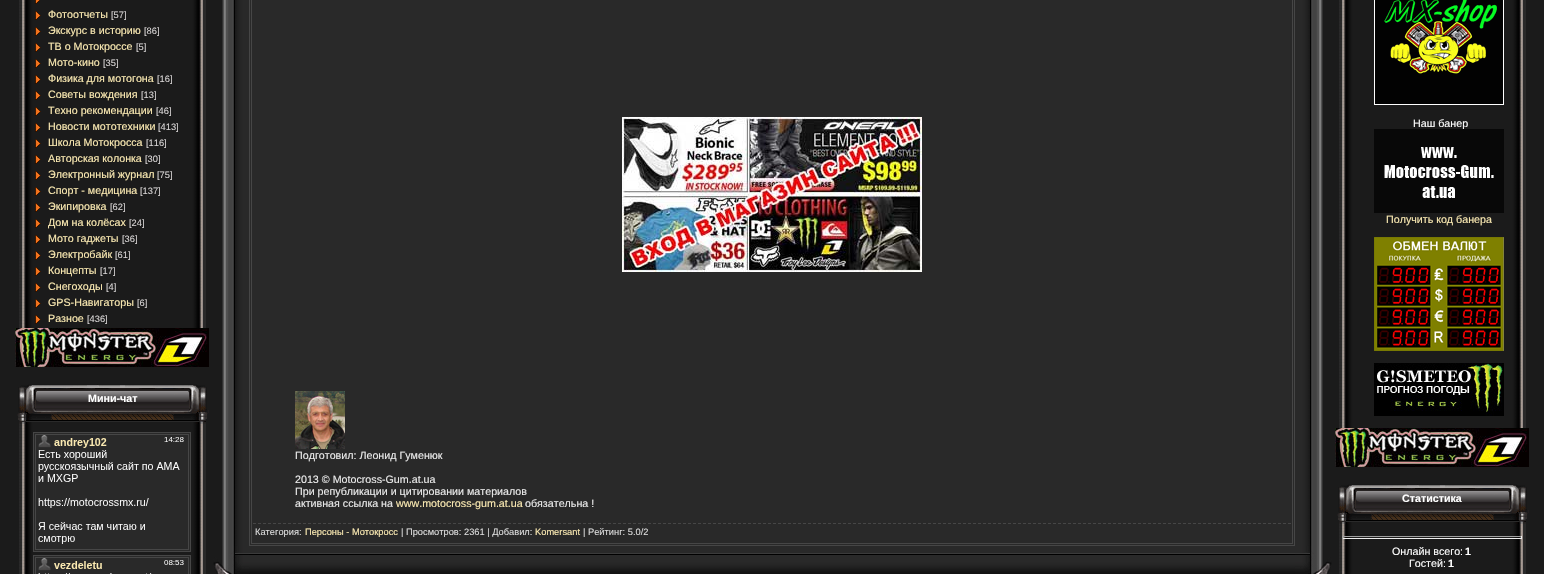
#include "include/core/SkBlurTypes.h"
#include "include/core/SkCanvas.h"
#include "include/core/SkData.h"
#include "include/core/SkFont.h"
#include "include/core/SkFontMgr.h"
#include "include/core/SkImage.h"
#include "include/core/SkMaskFilter.h"
#include "include/core/SkPaint.h"
#include "include/core/SkPathBuilder.h"
#include "include/core/SkTextBlob.h"
#include "include/effects/SkDashPathEffect.h"
#include "include/effects/SkGradientShader.h"
#include "include/utils/SkParsePath.h"

extern sk_sp<SkFontMgr> fontMgr;

static SkFont font(const char* family, int weight, float size, bool italic = false) {
    SkFontStyle style(weight, SkFontStyle::kNormal_Width,
        italic ? SkFontStyle::kItalic_Slant : SkFontStyle::kUpright_Slant);
    SkFont result(fontMgr->matchFamilyStyle(family, style), size);
    result.setSubpixel(true);
    return result;
}

static void drawLabel(SkCanvas* canvas, const char* s, float x, float y, const SkFont& font, SkColor color) {
    SkPaint ink(SkColor4f::FromColor(color));
    ink.setAntiAlias(true);
    canvas->drawString(s, x, y, font, ink);
}

static void fillRect(SkCanvas* canvas, float x, float y, float w, float h, SkColor color) {
    SkPaint ink(SkColor4f::FromColor(color));
    ink.setAntiAlias(true);
    canvas->drawRect(SkRect::MakeXYWH(x, y, w, h), ink);
}

static void drawPhoto(SkCanvas* canvas, const char* path, float x, float y, float w, float h) {
    auto image = SkImages::DeferredFromEncodedData(SkData::MakeFromFileName(path));
    canvas->drawImageRect(image, SkRect::MakeXYWH(x, y, w, h), SkSamplingOptions());
}

static SkPath parsePath(const char* data, bool evenOdd = false) {
    SkPath result = *SkParsePath::FromSVGString(data);
    if (evenOdd) result.setFillType(SkPathFillType::kEvenOdd);
    return result;
}

void draw(SkCanvas* canvas) {
    SkPaint paint;
    paint.setAntiAlias(true);
    canvas->clear(0xFF1B1B1B);
    drawPhoto(canvas, "assets/img1.png", 15, 0, 194, 328);
    drawPhoto(canvas, "assets/img2.png", 35, 0, 5, 4);
    drawPhoto(canvas, "assets/img3.png", 35, 11, 6, 9);
    SkFont font1 = font("Liberation Sans", 400, 10.7f);
    drawLabel(canvas, "Фотоотчеты", 48, 18, font1, 0xFFFBEAB2);
    SkFont font2 = font("Liberation Sans", 400, 9.3f);
    drawLabel(canvas, "[57]", 111, 18, font2, 0xFFD8D5D5);
    drawPhoto(canvas, "assets/img3.png", 35, 27, 6, 9);
    drawLabel(canvas, "Экскурс в историю", 48, 34, font1, 0xFFFBEAB2);
    drawLabel(canvas, "[86]", 144, 34, font2, 0xFFD8D5D5);
    drawPhoto(canvas, "assets/img3.png", 35, 43, 6, 9);
    drawLabel(canvas, "ТВ о Мотокроссе", 48, 50, font1, 0xFFFBEAB2);
    drawLabel(canvas, "[5]", 136, 50, font2, 0xFFD8D5D5);
    drawPhoto(canvas, "assets/img3.png", 35, 59, 6, 9);
    drawLabel(canvas, "Мото-кино", 48, 66, font1, 0xFFFBEAB2);
    drawLabel(canvas, "[35]", 103, 66, font2, 0xFFD8D5D5);
    drawPhoto(canvas, "assets/img3.png", 35, 75, 6, 9);
    drawLabel(canvas, "Физика для мотогона", 48, 82, font1, 0xFFFBEAB2);
    drawLabel(canvas, "[16]", 157, 82, font2, 0xFFD8D5D5);
    drawPhoto(canvas, "assets/img3.png", 35, 91, 6, 9);
    drawLabel(canvas, "Советы вождения", 48, 98, font1, 0xFFFBEAB2);
    drawLabel(canvas, "[13]", 141, 98, font2, 0xFFD8D5D5);
    drawPhoto(canvas, "assets/img3.png", 35, 107, 6, 9);
    drawLabel(canvas, "Техно рекомендации", 48, 114, font1, 0xFFFBEAB2);
    drawLabel(canvas, "[46]", 156, 114, font2, 0xFFD8D5D5);
    drawPhoto(canvas, "assets/img3.png", 35, 123, 6, 9);
    drawLabel(canvas, "Новости мототехники", 48, 130, font1, 0xFFFBEAB2);
    drawLabel(canvas, "[413]", 158, 130, font2, 0xFFD8D5D5);
    drawPhoto(canvas, "assets/img3.png", 35, 139, 6, 9);
    drawLabel(canvas, "Школа Мотокросса", 48, 146, font1, 0xFFFBEAB2);
    drawLabel(canvas, "[116]", 146, 146, font2, 0xFFD8D5D5);
    drawPhoto(canvas, "assets/img3.png", 35, 155, 6, 9);
    drawLabel(canvas, "Авторская колонка", 48, 162, font1, 0xFFFBEAB2);
    drawLabel(canvas, "[30]", 145, 162, font2, 0xFFD8D5D5);
    drawPhoto(canvas, "assets/img3.png", 35, 171, 6, 9);
    drawLabel(canvas, "Электронный журнал", 48, 178, font1, 0xFFFBEAB2);
    drawLabel(canvas, "[75]", 157, 178, font2, 0xFFD8D5D5);
    drawPhoto(canvas, "assets/img3.png", 35, 187, 6, 9);
    drawLabel(canvas, "Спорт - медицина", 48, 194, font1, 0xFFFBEAB2);
    drawLabel(canvas, "[137]", 140, 194, font2, 0xFFD8D5D5);
    drawPhoto(canvas, "assets/img3.png", 35, 203, 6, 9);
    drawLabel(canvas, "Экипировка", 48, 210, font1, 0xFFFBEAB2);
    drawLabel(canvas, "[62]", 110, 210, font2, 0xFFD8D5D5);
    drawPhoto(canvas, "assets/img3.png", 35, 219, 6, 9);
    drawLabel(canvas, "Дом на колёсах", 48, 226, font1, 0xFFFBEAB2);
    drawLabel(canvas, "[24]", 129, 226, font2, 0xFFD8D5D5);
    drawPhoto(canvas, "assets/img3.png", 35, 235, 6, 9);
    drawLabel(canvas, "Мото гаджеты", 48, 242, font1, 0xFFFBEAB2);
    drawLabel(canvas, "[36]", 122, 242, font2, 0xFFD8D5D5);
    drawPhoto(canvas, "assets/img3.png", 35, 251, 6, 9);
    drawLabel(canvas, "Электробайк", 48, 258, font1, 0xFFFBEAB2);
    drawLabel(canvas, "[61]", 115, 258, font2, 0xFFD8D5D5);
    drawPhoto(canvas, "assets/img3.png", 35, 267, 6, 9);
    drawLabel(canvas, "Концепты", 48, 274, font1, 0xFFFBEAB2);
    drawLabel(canvas, "[17]", 100, 274, font2, 0xFFD8D5D5);
    drawPhoto(canvas, "assets/img3.png", 35, 283, 6, 9);
    drawLabel(canvas, "Снегоходы", 48, 290, font1, 0xFFFBEAB2);
    drawLabel(canvas, "[4]", 106, 290, font2, 0xFFD8D5D5);
    drawPhoto(canvas, "assets/img3.png", 35, 299, 6, 9);
    drawLabel(canvas, "GPS-Навигаторы", 48, 306, font1, 0xFFFBEAB2);
    drawLabel(canvas, "[6]", 137, 306, font2, 0xFFD8D5D5);
    drawPhoto(canvas, "assets/img3.png", 35, 315, 6, 9);
    drawLabel(canvas, "Разное", 48, 322, font1, 0xFFFBEAB2);
    drawLabel(canvas, "[436]", 87, 322, font2, 0xFFD8D5D5);
    drawPhoto(canvas, "assets/img4.png", 15, 328, 194, 39);
    drawPhoto(canvas, "assets/img5.png", 15, 379, 194, 195);
    drawPhoto(canvas, "assets/img6.png", 17, 379, 192, 45);
    SkFont font3 = font("Liberation Sans", 700, 10.7f);
    drawLabel(canvas, "Мини-чат", 88, 402, font3, 0xFFFFFFFF);
    drawPhoto(canvas, "assets/img7.png", 33, 432, 158, 142);
    drawPhoto(canvas, "assets/img8.png", 222, 0, 27, 546);
    paint.setColor(0xFF292929);
    canvas->drawRect(SkRect::MakeXYWH(249.5f, -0.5f, 1045, 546), paint);
    paint.setStroke(true);
    paint.setStrokeWidth(1);
    paint.setColor(0xFF464646);
    canvas->drawRect(SkRect::MakeXYWH(249.5f, -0.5f, 1045, 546), paint);
    canvas->drawRect(SkRect::MakeXYWH(251.5f, -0.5f, 1041, 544), paint);
    drawPhoto(canvas, "assets/img9.png", 622, 117, 300, 155);
    drawPhoto(canvas, "assets/img10.png", 295, 391, 50, 58);
    drawLabel(canvas, "Подготовил: Леонид Гуменюк", 295, 459, font1, 0xFFEBEBEB);
    drawLabel(canvas, "2013 © Motocross-Gum.at.ua", 295, 483, font1, 0xFFEBEBEB);
    drawLabel(canvas, "При републикации и цитировании материалов", 295, 495, font1, 0xFFEBEBEB);
    drawLabel(canvas, "активная ссылка на", 295, 507, font1, 0xFFEBEBEB);
    drawLabel(canvas, "www.motocross-gum.at.ua", 396, 507, font1, 0xFFFBEAB2);
    drawLabel(canvas, "обязательна !", 525, 507, font1, 0xFFEBEBEB);
    paint.setPathEffect(SkDashPathEffect::Make({{3, 2}}, 0));
    canvas->drawPath(parsePath("M253 523.5H1291"), paint);
    paint.setPathEffect(nullptr);
    drawLabel(canvas, "Категория:", 255, 535, font2, 0xFFDDDDDD);
    drawLabel(canvas, "Персоны - Мотокросс", 305, 535, font2, 0xFFFBEAB2);
    drawLabel(canvas, "| Просмотров: 2361 | Добавил:", 401, 535, font2, 0xFFDDDDDD);
    drawLabel(canvas, "Komersant", 535, 535, font2, 0xFFFBEAB2);
    drawLabel(canvas, "| Рейтинг: 5.0/2", 583, 535, font2, 0xFFDDDDDD);
    drawPhoto(canvas, "assets/img11.png", 1295, 0, 28, 546);
    drawPhoto(canvas, "assets/img12.png", 213, 546, 36, 28);
    drawPhoto(canvas, "assets/img13.png", 249, 546, 1046, 28);
    drawPhoto(canvas, "assets/img14.png", 1295, 546, 37, 28);
    drawPhoto(canvas, "assets/img15.png", 1335, 0, 194, 428);
    drawPhoto(canvas, "assets/img16.png", 1374, 0, 130, 105);
    drawLabel(canvas, "Наш банер", 1413, 127, font1, 0xFFFFFFFF);
    drawPhoto(canvas, "assets/img17.png", 1374, 129, 130, 84);
    drawLabel(canvas, "Получить код банера", 1386, 223, font1, 0xFFFBEAB2);
    drawPhoto(canvas, "assets/img18.png", 1374, 237, 130, 114);
    drawPhoto(canvas, "assets/img19.png", 1374, 363, 130, 53);
    drawPhoto(canvas, "assets/img4.png", 1335, 428, 194, 39);
    drawPhoto(canvas, "assets/img20.png", 1335, 479, 194, 95);
    drawPhoto(canvas, "assets/img6.png", 1337, 479, 192, 45);
    drawLabel(canvas, "Статистика", 1402, 502, font3, 0xFFFFFFFF);
    fillRect(canvas, 1342, 536, 180, 1, 0xFF9F9F9F);
    fillRect(canvas, 1521, 536, 1, 3, 0xFFEEEEEE);
    fillRect(canvas, 1342, 538, 180, 1, 0xFFEEEEEE);
    fillRect(canvas, 1342, 536, 1, 3, 0xFF9F9F9F);
    drawLabel(canvas, "Онлайн всего:", 1392, 555, font1, 0xFFFFFFFF);
    drawLabel(canvas, "1", 1465, 555, font3, 0xFFFFFFFF);
    drawLabel(canvas, "Гостей:", 1409, 567, font1, 0xFFFFFFFF);
    drawLabel(canvas, "1", 1448, 567, font3, 0xFFFFFFFF);
}
